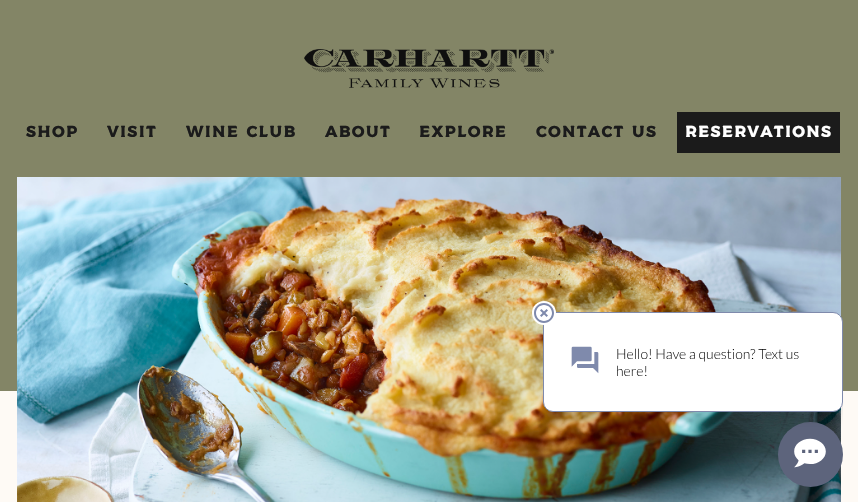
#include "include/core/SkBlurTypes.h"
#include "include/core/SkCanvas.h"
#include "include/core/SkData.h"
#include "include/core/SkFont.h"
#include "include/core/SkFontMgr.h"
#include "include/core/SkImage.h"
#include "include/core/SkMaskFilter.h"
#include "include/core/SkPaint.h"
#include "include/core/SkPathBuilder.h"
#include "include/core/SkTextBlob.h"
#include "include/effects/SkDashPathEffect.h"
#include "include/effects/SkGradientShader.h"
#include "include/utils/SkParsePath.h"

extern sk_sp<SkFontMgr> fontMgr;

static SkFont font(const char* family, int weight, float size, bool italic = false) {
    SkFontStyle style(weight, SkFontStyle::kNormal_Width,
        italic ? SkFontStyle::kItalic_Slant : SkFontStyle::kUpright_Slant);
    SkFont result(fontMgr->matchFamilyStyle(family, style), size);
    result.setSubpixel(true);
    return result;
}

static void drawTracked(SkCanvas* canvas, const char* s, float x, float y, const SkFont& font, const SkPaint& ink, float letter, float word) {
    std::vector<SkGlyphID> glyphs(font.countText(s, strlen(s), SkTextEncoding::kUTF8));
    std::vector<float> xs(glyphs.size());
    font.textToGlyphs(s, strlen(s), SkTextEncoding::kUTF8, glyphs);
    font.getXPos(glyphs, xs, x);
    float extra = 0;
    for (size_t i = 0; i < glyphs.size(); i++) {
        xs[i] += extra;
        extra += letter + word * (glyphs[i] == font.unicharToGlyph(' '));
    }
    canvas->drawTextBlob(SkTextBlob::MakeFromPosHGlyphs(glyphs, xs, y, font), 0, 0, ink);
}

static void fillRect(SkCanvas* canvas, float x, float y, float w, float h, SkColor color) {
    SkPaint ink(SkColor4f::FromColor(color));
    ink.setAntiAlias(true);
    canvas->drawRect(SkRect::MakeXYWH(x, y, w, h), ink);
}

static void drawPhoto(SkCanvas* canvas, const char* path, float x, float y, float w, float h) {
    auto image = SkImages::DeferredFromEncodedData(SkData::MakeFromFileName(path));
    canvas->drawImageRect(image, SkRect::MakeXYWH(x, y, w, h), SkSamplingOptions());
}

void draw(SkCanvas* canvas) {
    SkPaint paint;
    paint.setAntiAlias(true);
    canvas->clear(0xFF838566);
    drawPhoto(canvas, "assets/img1.png", 304, 49, 250, 39);
    SkFont font1 = font("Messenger", 400, 16);
    paint.setColor(0xFF1B1B1B);
    drawTracked(canvas, "SHOP", 26, 137, font1, paint, 1.25f, 0);
    drawTracked(canvas, "VISIT", 107, 137, font1, paint, 1.25f, 0);
    drawTracked(canvas, "WINE CLUB", 186, 137, font1, paint, 1.25f, 0);
    drawTracked(canvas, "ABOUT", 325, 137, font1, paint, 1.25f, 0);
    drawTracked(canvas, "EXPLORE", 419, 137, font1, paint, 1.25f, 0);
    drawTracked(canvas, "CONTACT US", 536, 137, font1, paint, 1.25f, 0);
    fillRect(canvas, 677, 112, 163, 41, 0xFF1B1B1B);
    paint.setColor(0xFFFFFFFF);
    drawTracked(canvas, "RESERVATIONS", 685, 137, font1, paint, 1.25f, 0);
    fillRect(canvas, 0, 391, 858, 111, 0xFFFEFAF5);
    drawPhoto(canvas, "assets/img2.png", 17, 177, 824, 325);
    drawPhoto(canvas, "assets/img3.png", 532, 301, 311, 186);
}
